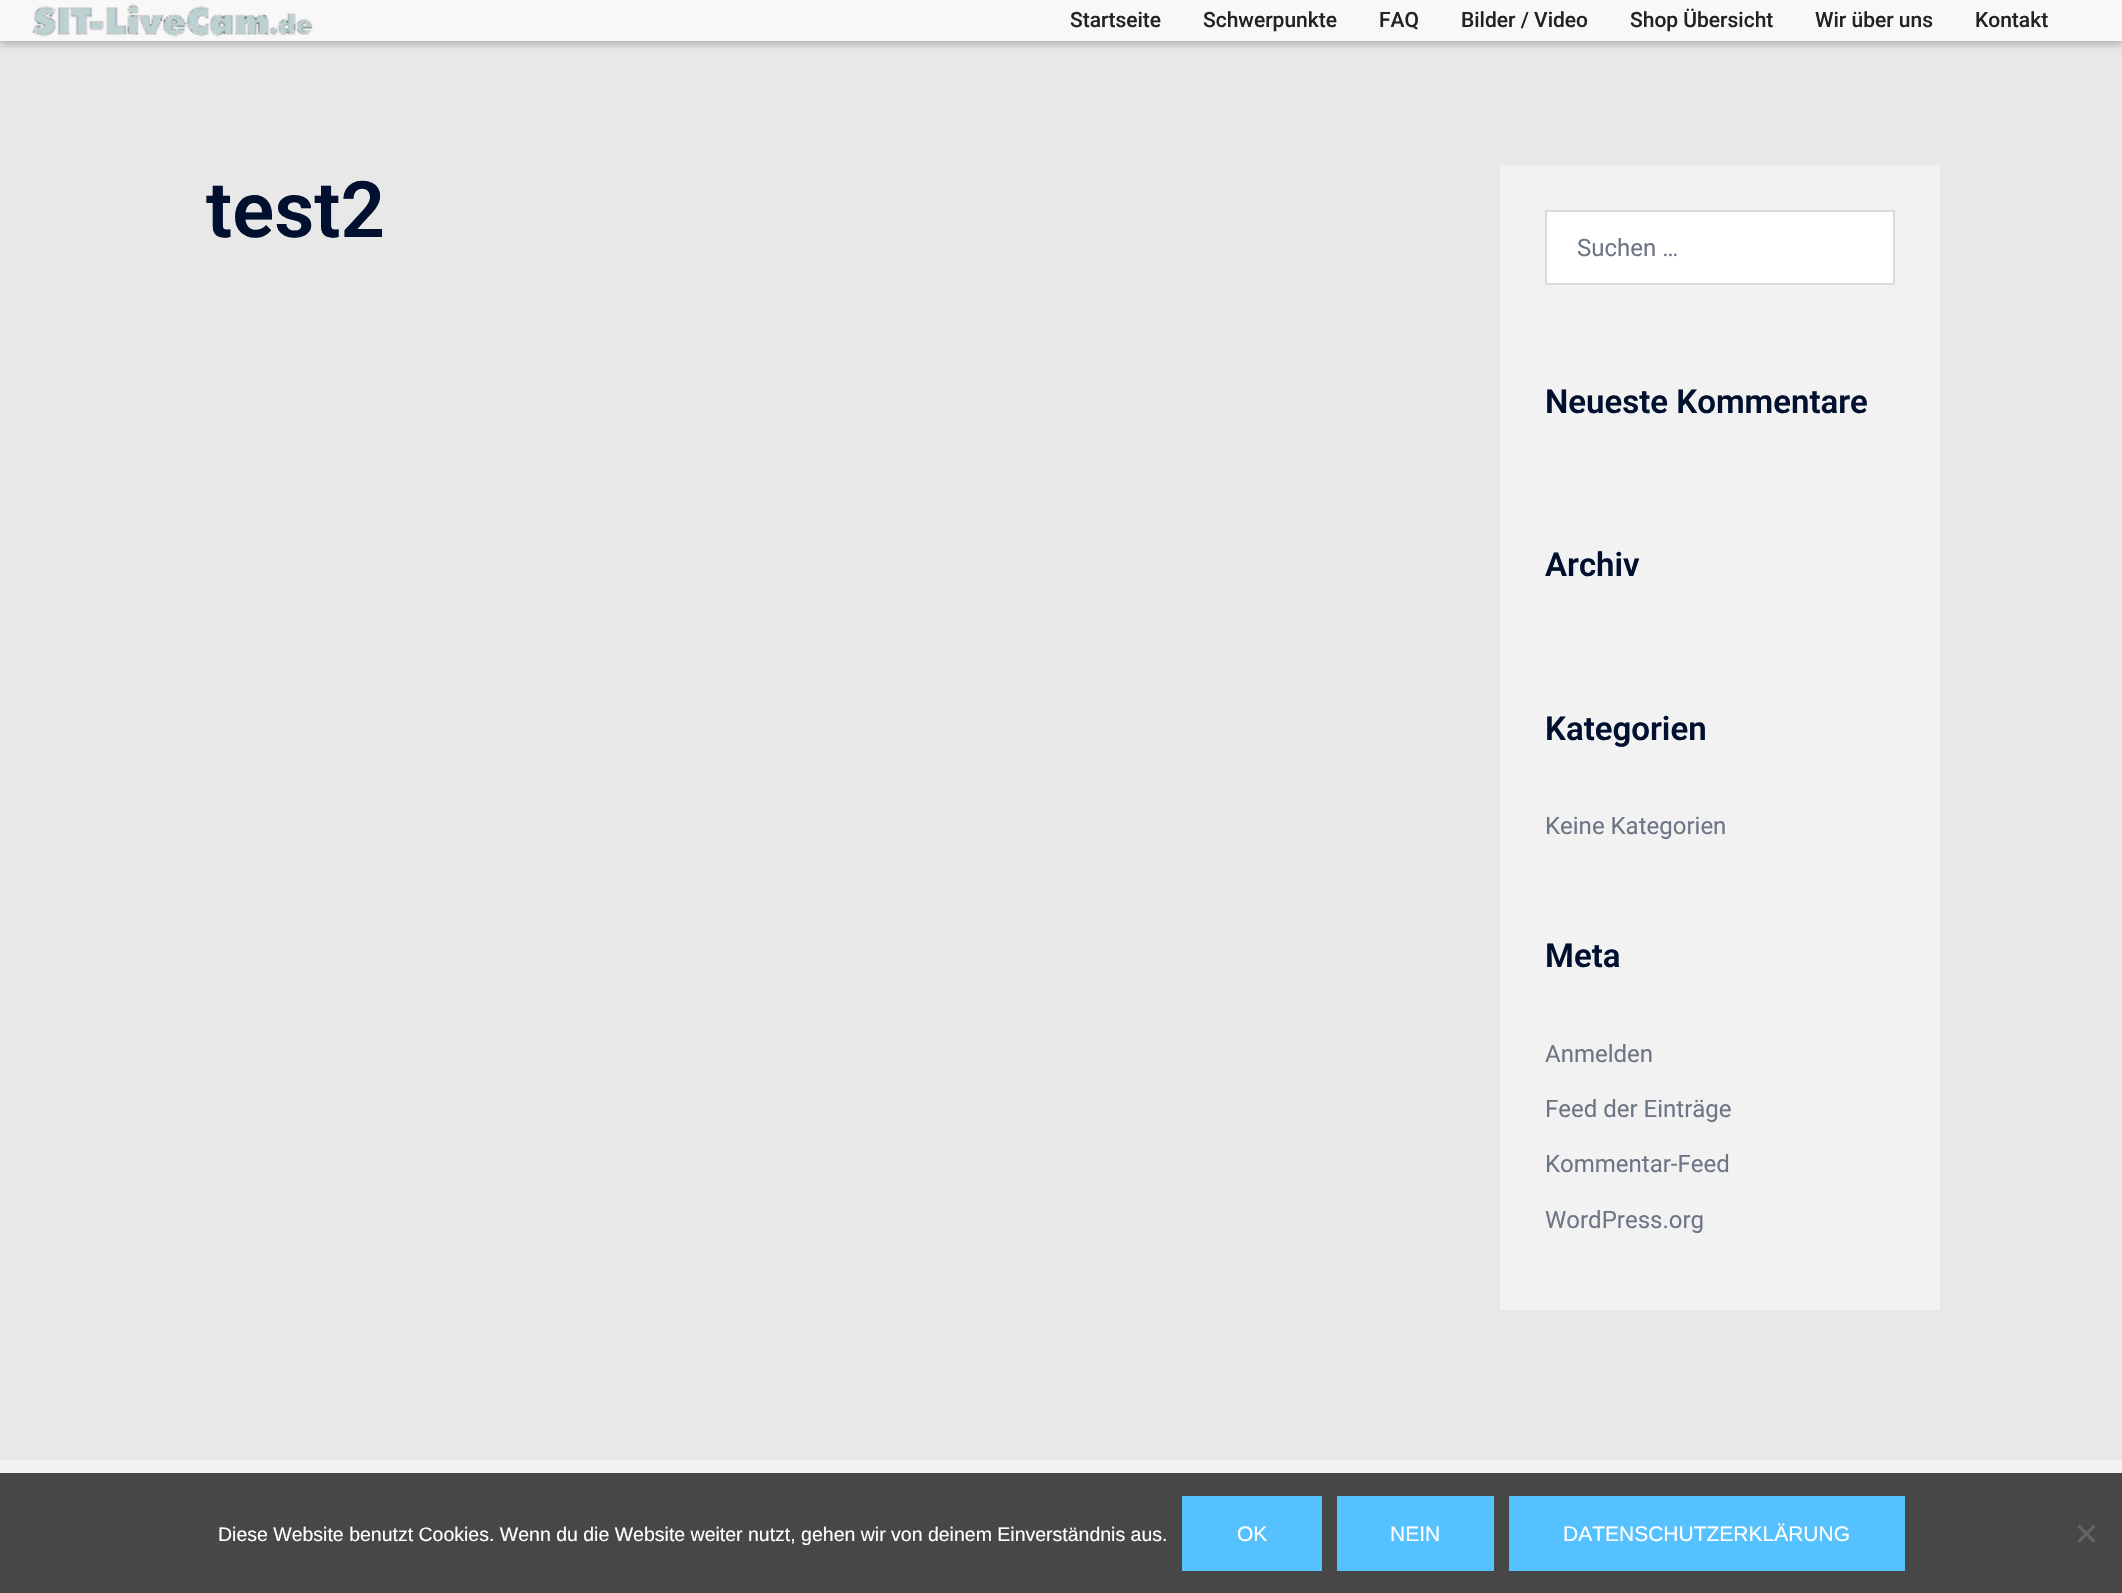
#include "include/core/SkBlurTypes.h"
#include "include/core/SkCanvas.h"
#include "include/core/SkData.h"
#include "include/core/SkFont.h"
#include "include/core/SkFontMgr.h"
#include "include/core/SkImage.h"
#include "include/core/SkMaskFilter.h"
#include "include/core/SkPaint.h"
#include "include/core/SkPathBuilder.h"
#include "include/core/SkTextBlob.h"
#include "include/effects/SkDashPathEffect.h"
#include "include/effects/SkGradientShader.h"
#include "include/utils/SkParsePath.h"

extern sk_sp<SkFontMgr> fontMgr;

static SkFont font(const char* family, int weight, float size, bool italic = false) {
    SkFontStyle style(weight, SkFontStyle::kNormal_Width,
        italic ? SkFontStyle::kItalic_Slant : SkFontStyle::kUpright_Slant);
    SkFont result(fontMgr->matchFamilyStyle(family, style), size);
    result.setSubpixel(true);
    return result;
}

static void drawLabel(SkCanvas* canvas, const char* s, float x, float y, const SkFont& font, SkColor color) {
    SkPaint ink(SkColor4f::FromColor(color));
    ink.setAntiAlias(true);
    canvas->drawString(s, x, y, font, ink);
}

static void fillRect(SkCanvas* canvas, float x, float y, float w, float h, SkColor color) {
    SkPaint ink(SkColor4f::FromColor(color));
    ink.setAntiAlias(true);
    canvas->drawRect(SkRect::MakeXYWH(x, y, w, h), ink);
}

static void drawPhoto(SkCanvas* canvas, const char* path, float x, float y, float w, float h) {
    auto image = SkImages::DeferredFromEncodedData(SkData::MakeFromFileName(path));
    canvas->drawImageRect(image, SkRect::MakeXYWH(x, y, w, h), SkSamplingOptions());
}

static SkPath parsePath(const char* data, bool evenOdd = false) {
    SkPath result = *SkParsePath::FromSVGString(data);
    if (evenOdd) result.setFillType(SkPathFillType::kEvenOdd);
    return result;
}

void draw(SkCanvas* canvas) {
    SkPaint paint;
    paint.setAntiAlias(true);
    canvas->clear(0xFFE8E8E8);
    canvas->save();
    canvas->clipPath(parsePath("M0 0H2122V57H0ZM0 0H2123V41H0Z", true), true);
    paint.setColor(0x42000000);
    paint.setMaskFilter(SkMaskFilter::MakeBlur(kNormal_SkBlurStyle, 4));
    canvas->drawRect(SkRect::MakeXYWH(0, 3, 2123, 41), paint);
    paint.setMaskFilter(nullptr);
    canvas->restore();
    fillRect(canvas, 0, 0, 2122, 41, 0xE6FAFAFA);
    drawPhoto(canvas, "assets/img1.png", 32, 4, 281, 33);
    SkFont font1 = font("Roboto", 500, 21);
    drawLabel(canvas, "Startseite", 1070, 27, font1, 0xFF232323);
    drawLabel(canvas, "Schwerpunkte", 1203, 27, font1, 0xFF232323);
    drawLabel(canvas, "FAQ", 1379, 27, font1, 0xFF232323);
    drawLabel(canvas, "Bilder / Video", 1461, 27, font1, 0xFF232323);
    drawLabel(canvas, "Shop Übersicht", 1630, 27, font1, 0xFF232323);
    drawLabel(canvas, "Wir über uns", 1815, 27, font1, 0xFF232323);
    drawLabel(canvas, "Kontakt", 1975, 27, font1, 0xFF232323);
    SkFont font2 = font("Roboto", 600, 78);
    drawLabel(canvas, "test2", 206, 237, font2, 0xFF00102E);
    fillRect(canvas, 1500, 165, 440, 1145, 0xFFF2F2F2);
    paint.setColor(0xFFFFFFFF);
    canvas->drawRect(SkRect::MakeXYWH(1546, 211, 348, 73), paint);
    paint.setStroke(true);
    paint.setStrokeWidth(2);
    paint.setColor(0xFFDBDBDB);
    canvas->drawRect(SkRect::MakeXYWH(1546, 211, 348, 73), paint);
    SkFont font3 = font("Roboto", 400, 24);
    drawLabel(canvas, "Suchen …", 1577, 256, font3, 0xFF6D7685);
    SkFont font4 = font("Roboto", 600, 33);
    drawLabel(canvas, "Neueste Kommentare", 1545, 413, font4, 0xFF00102E);
    drawLabel(canvas, "Archiv", 1545, 576, font4, 0xFF00102E);
    drawLabel(canvas, "Kategorien", 1545, 740, font4, 0xFF00102E);
    drawLabel(canvas, "Keine Kategorien", 1545, 834, font3, 0xFF6D7685);
    drawLabel(canvas, "Meta", 1545, 967, font4, 0xFF00102E);
    drawLabel(canvas, "Anmelden", 1545, 1062, font3, 0xFF6D7685);
    drawLabel(canvas, "Feed der Einträge", 1545, 1117, font3, 0xFF6D7685);
    drawLabel(canvas, "Kommentar-Feed", 1545, 1172, font3, 0xFF6D7685);
    drawLabel(canvas, "WordPress.org", 1545, 1228, font3, 0xFF6D7685);
    fillRect(canvas, 0, 1460, 2122, 13, 0xFFF2F2F2);
    fillRect(canvas, 0, 1473, 2122, 120, 0xFF474747);
    SkFont font5 = font("Liberation Sans", 400, 19.5f);
    drawLabel(canvas, "Diese Website benutzt Cookies. Wenn du die Website weiter nutzt, gehen wir von deinem Einverständnis aus.", 218, 1541, font5, 0xFFFFFFFF);
    fillRect(canvas, 1182, 1496, 140, 75, 0xFF56C1FF);
    SkFont font6 = font("Liberation Sans", 400, 21);
    drawLabel(canvas, "OK", 1237, 1541, font6, 0xFFFFFFFF);
    fillRect(canvas, 1337, 1496, 157, 75, 0xFF56C1FF);
    drawLabel(canvas, "NEIN", 1390, 1541, font6, 0xFFFFFFFF);
    fillRect(canvas, 1509, 1496, 396, 75, 0xFF56C1FF);
    drawLabel(canvas, "DATENSCHUTZERKLÄRUNG", 1563, 1541, font6, 0xFFFFFFFF);
    paint.setStroke(false);
    paint.setColor(0xFF646464);
    canvas->drawPath(parsePath("M2093.5 1524.5L2095.5 1527L2079.5 1543L2077.5 1540.5Z"), paint);
    canvas->drawPath(parsePath("M2077.5 1527L2079.5 1524.5L2095.5 1540.5L2093.5 1543Z"), paint);
}
